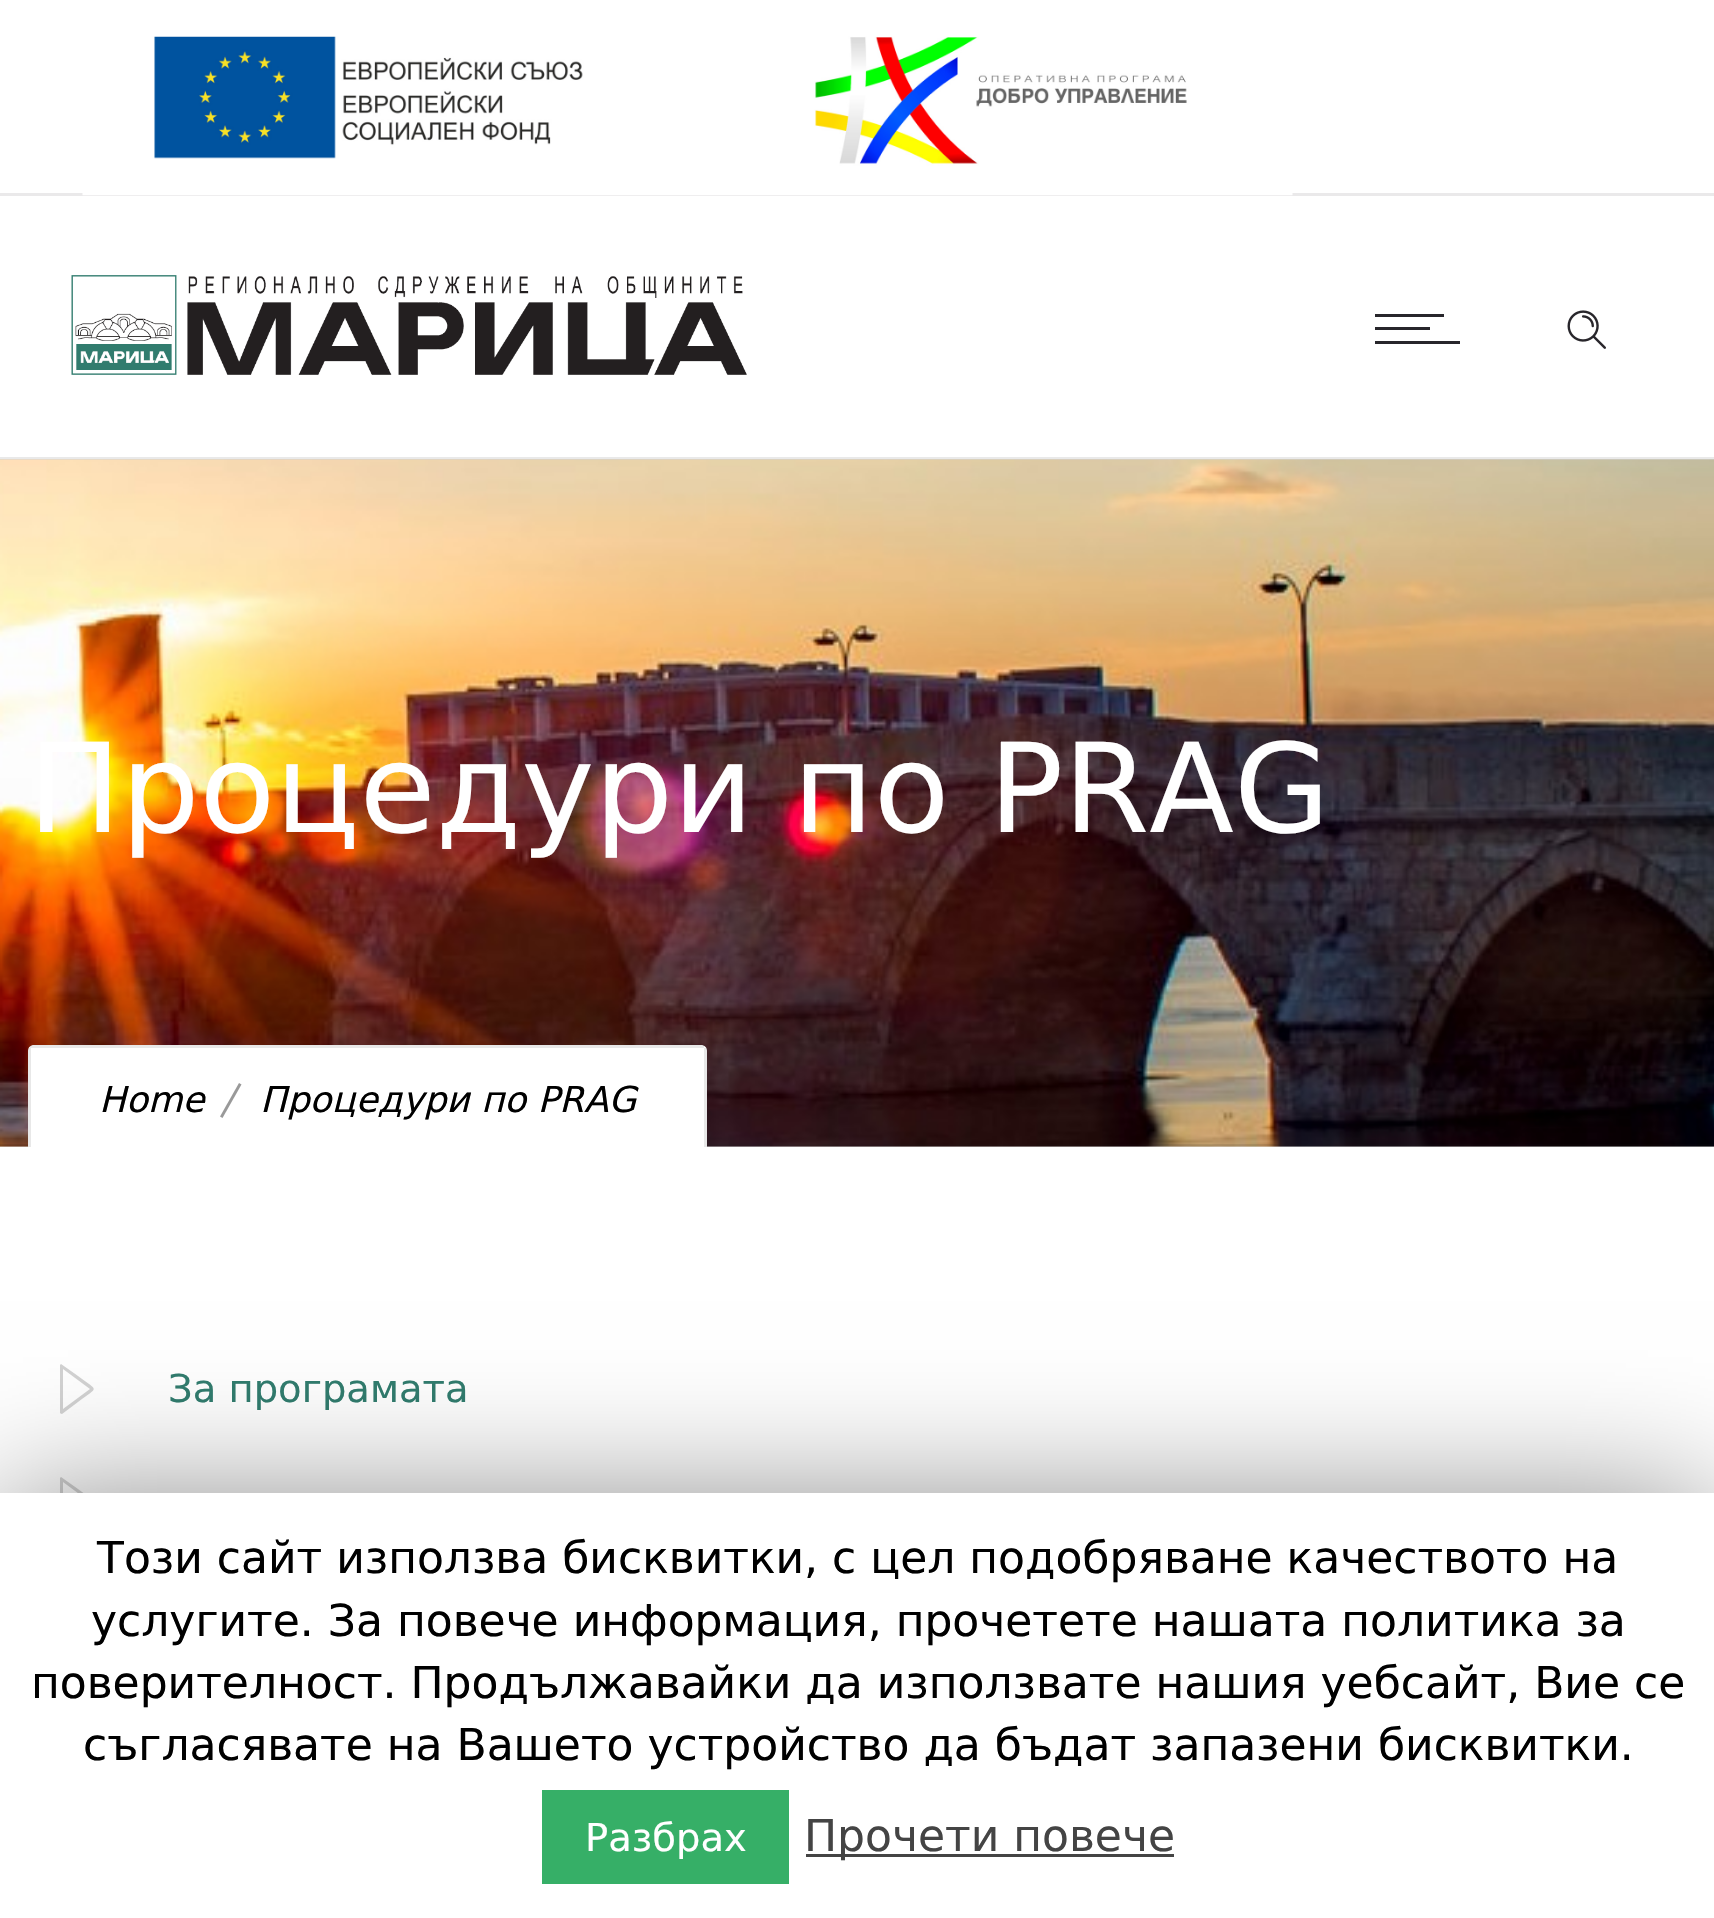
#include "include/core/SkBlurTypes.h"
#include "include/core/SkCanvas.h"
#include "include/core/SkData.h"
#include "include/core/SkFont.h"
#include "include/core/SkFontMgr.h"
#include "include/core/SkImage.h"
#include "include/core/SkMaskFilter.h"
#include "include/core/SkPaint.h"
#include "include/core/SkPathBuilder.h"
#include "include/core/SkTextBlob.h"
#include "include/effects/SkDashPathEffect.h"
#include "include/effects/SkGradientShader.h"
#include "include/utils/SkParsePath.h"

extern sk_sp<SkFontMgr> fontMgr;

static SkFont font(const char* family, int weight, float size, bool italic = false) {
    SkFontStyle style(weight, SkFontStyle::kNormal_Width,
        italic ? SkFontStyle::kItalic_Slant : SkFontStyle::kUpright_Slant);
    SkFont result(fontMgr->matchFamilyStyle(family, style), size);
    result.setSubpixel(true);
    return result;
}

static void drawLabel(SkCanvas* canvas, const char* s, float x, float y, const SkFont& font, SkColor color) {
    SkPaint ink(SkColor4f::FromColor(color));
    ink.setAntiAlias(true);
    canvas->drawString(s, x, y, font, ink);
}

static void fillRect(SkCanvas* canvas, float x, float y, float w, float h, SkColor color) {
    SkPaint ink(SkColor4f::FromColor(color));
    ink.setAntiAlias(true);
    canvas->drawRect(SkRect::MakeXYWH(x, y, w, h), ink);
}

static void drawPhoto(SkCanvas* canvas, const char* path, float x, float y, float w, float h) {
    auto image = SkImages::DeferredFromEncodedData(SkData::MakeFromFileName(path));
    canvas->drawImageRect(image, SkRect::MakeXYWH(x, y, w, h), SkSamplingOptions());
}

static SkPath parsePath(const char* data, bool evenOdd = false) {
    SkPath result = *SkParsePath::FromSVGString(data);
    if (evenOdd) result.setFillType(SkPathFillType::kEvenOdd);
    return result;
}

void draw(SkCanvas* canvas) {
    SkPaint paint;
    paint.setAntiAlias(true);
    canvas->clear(0xFFFFFFFF);
    drawPhoto(canvas, "assets/img4.png", 0, 459, 1714, 688);
    fillRect(canvas, 0, 457, 1714, 3, 0x1A28262B);
    fillRect(canvas, 0, 193, 1714, 3, 0xFFEAE9EA);
    drawPhoto(canvas, "assets/img1.png", 82, 36, 1211, 160);
    drawPhoto(canvas, "assets/img2.png", 71, 275, 676, 100);
    fillRect(canvas, 1375, 314, 69, 3, 0xFF28262B);
    fillRect(canvas, 1375, 327, 55, 3, 0xFF28262B);
    fillRect(canvas, 1375, 341, 85, 3, 0xFF28262B);
    drawPhoto(canvas, "assets/img3.png", 1567, 310, 39, 39);
    fillRect(canvas, 0, 1144, 1714, 3, 0x1A1B1B1B);
    SkFont font1 = font("DejaVu Sans", 400, 123.75f);
    drawLabel(canvas, "Процедури по PRAG", 28, 832, font1, 0xFFFFFFFF);
    paint.setColor(0xFFFFFFFF);
    canvas->drawPath(parsePath("M34 1045H701C704.5 1045 707 1047.5 707 1051V1147H28V1051C28 1047.5 30.5 1045 34 1045Z"), paint);
    fillRect(canvas, 30, 1045, 674, 3, 0x1A1B1B1B);
    fillRect(canvas, 704, 1048, 3, 99, 0x1A1B1B1B);
    fillRect(canvas, 28, 1048, 3, 99, 0x1A1B1B1B);
    SkFont font2 = font("DejaVu Sans", 400, 35.75f, true);
    drawLabel(canvas, "Home", 99, 1112, font2, 0xFF000000);
    paint.setColor(0xFF999999);
    canvas->drawPath(parsePath("M239 1083L241.5 1084.5L222.5 1118L220 1116.5Z"), paint);
    drawLabel(canvas, "Процедури по PRAG", 260, 1112, font2, 0xFF000000);
    paint.setColor(0xFFD2D2D2);
    canvas->drawPath(parsePath("M62 1414C61 1414 60 1413 60 1413V1365L61 1364L78 1376C99 1392 99 1386 78 1402ZM63 1369V1409L90 1389Z"), paint);
    SkFont font3 = font("DejaVu Sans", 400, 38.5f);
    drawLabel(canvas, "За програмата", 168, 1402, font3, 0xFF317C6E);
    canvas->drawPath(parsePath("M62 1527C61 1527 60 1526 60 1525V1478L61 1477L78 1489C99 1505 99 1499 78 1515ZM63 1482V1522L90 1502Z"), paint);
    paint.setColor(0x80000000);
    paint.setMaskFilter(SkMaskFilter::MakeBlur(kNormal_SkBlurStyle, 69));
    canvas->drawRect(SkRect::MakeXYWH(0, 1507, 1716, 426), paint);
    paint.setMaskFilter(nullptr);
    fillRect(canvas, 0, 1493, 1714, 425, 0xFFFFFFFF);
    SkFont font4 = font("DejaVu Sans", 400, 44);
    drawLabel(canvas, "Този сайт използва бисквитки, с цел подобряване качеството на", 97, 1573, font4, 0xFF000000);
    drawLabel(canvas, "услугите. За повече информация, прочетете нашата политика за", 91, 1636, font4, 0xFF000000);
    drawLabel(canvas, "поверителност. Продължавайки да използвате нашия уебсайт, Вие се", 31, 1698, font4, 0xFF000000);
    drawLabel(canvas, "съгласявате на Вашето устройство да бъдат запазени бисквитки.", 83, 1760, font4, 0xFF000000);
    fillRect(canvas, 542, 1790, 247, 94, 0xFF36AF67);
    drawLabel(canvas, "Разбрах", 585, 1851, font3, 0xFFFFFFFF);
    fillRect(canvas, 806, 1854, 368, 3, 0xFF444444);
    drawLabel(canvas, "Прочети повече", 804, 1851, font4, 0xFF444444);
}
